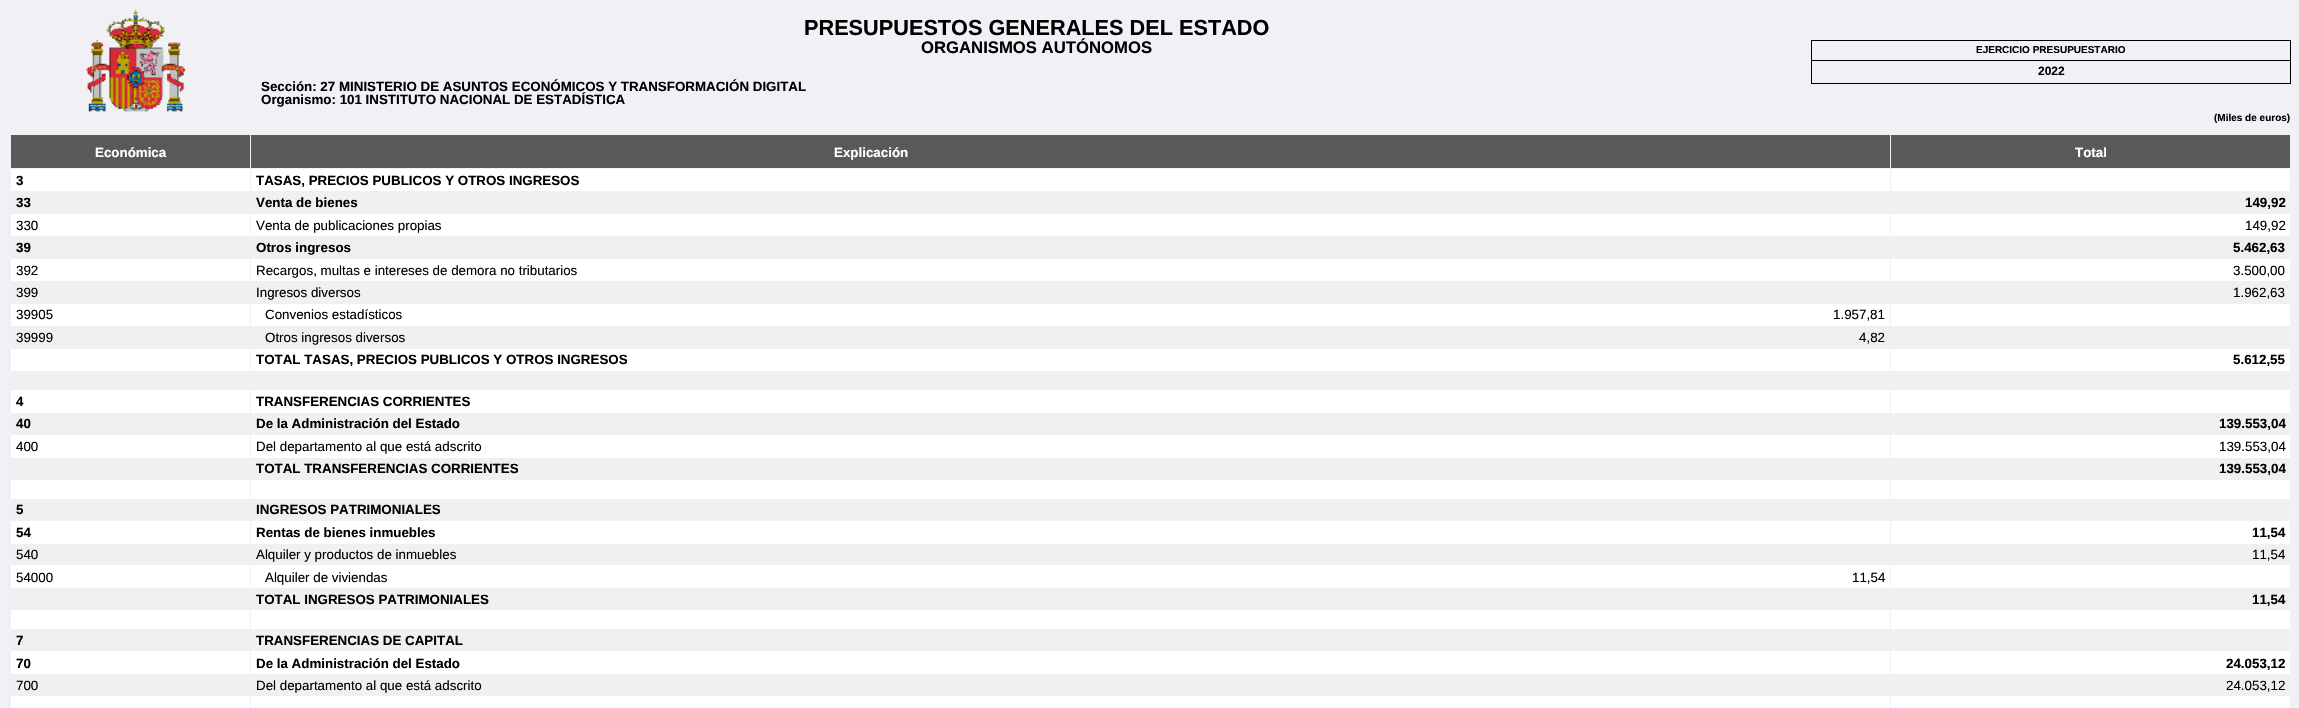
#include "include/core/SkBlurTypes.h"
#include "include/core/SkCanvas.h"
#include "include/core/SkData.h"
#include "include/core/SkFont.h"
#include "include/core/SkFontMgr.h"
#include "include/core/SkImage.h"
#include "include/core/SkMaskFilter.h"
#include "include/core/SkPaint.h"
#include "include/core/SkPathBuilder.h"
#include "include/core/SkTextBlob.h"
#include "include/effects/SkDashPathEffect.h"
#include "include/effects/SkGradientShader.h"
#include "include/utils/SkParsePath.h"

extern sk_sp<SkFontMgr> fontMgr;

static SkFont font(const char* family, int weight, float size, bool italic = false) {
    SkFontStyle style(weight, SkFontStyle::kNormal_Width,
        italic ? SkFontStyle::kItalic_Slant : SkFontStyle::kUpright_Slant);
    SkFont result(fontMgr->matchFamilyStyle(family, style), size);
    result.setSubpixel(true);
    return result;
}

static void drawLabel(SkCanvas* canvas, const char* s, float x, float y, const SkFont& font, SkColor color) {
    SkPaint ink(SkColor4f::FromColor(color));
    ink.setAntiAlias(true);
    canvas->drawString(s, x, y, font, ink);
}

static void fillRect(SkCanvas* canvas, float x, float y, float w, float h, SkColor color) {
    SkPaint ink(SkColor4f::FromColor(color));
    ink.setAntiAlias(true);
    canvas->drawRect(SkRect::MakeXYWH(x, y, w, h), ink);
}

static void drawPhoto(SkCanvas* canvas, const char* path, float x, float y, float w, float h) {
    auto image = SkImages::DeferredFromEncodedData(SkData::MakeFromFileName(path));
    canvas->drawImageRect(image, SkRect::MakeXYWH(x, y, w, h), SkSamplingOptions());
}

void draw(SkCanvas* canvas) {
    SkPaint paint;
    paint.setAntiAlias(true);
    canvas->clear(0xFFF0F0F5);
    drawPhoto(canvas, "assets/img1.png", 86, 10, 100, 102);
    SkFont font1 = font("Liberation Sans", 700, 21.7f);
    drawLabel(canvas, "PRESUPUESTOS GENERALES DEL ESTADO", 804, 35, font1, 0xFF000000);
    SkFont font2 = font("Liberation Sans", 700, 16.7f);
    drawLabel(canvas, "ORGANISMOS AUTÓNOMOS", 921, 53, font2, 0xFF000000);
    SkFont font3 = font("Liberation Sans", 700, 13.35f);
    drawLabel(canvas, "Sección: 27 MINISTERIO DE ASUNTOS ECONÓMICOS Y TRANSFORMACIÓN DIGITAL", 261, 91, font3, 0xFF000000);
    drawLabel(canvas, "Organismo: 101 INSTITUTO NACIONAL DE ESTADÍSTICA", 261, 104, font3, 0xFF000000);
    fillRect(canvas, 1811, 40, 480, 1, 0xFF000000);
    fillRect(canvas, 2290, 40, 1, 44, 0xFF000000);
    fillRect(canvas, 1811, 83, 480, 1, 0xFF000000);
    fillRect(canvas, 1811, 40, 1, 44, 0xFF000000);
    SkFont font4 = font("Liberation Sans", 700, 10);
    drawLabel(canvas, "EJERCICIO PRESUPUESTARIO", 1976, 53, font4, 0xFF000000);
    fillRect(canvas, 1811, 60, 480, 1, 0xFF000000);
    SkFont font5 = font("Liberation Sans", 700, 12);
    drawLabel(canvas, "2022", 2038, 75, font5, 0xFF000000);
    drawLabel(canvas, "(Miles de euros)", 2214, 121, font4, 0xFF000000);
    fillRect(canvas, 11, 135, 2279, 33, 0xFF595959);
    drawLabel(canvas, "Económica", 95, 157, font3, 0xFFFFFFFF);
    drawLabel(canvas, "Explicación", 834, 157, font3, 0xFFFFFFFF);
    drawLabel(canvas, "Total", 2075, 157, font3, 0xFFFFFFFF);
    fillRect(canvas, 11, 696, 2279, 12, 0xFFFFFFFF);
    fillRect(canvas, 11, 169, 2279, 22, 0xFFFFFFFF);
    fillRect(canvas, 11, 191, 2279, 23, 0xFFF0F0F0);
    fillRect(canvas, 11, 214, 2279, 22, 0xFFFFFFFF);
    fillRect(canvas, 11, 236, 2279, 23, 0xFFF0F0F0);
    fillRect(canvas, 11, 259, 2279, 22, 0xFFFFFFFF);
    fillRect(canvas, 11, 281, 2279, 23, 0xFFF0F0F0);
    fillRect(canvas, 11, 304, 2279, 22, 0xFFFFFFFF);
    fillRect(canvas, 11, 326, 2279, 23, 0xFFF0F0F0);
    fillRect(canvas, 11, 349, 2279, 22, 0xFFFFFFFF);
    fillRect(canvas, 11, 371, 2279, 19, 0xFFF0F0F0);
    fillRect(canvas, 11, 390, 2279, 23, 0xFFFFFFFF);
    fillRect(canvas, 11, 413, 2279, 22, 0xFFF0F0F0);
    fillRect(canvas, 11, 435, 2279, 23, 0xFFFFFFFF);
    fillRect(canvas, 11, 458, 2279, 22, 0xFFF0F0F0);
    fillRect(canvas, 11, 480, 2279, 19, 0xFFFFFFFF);
    fillRect(canvas, 11, 499, 2279, 22, 0xFFF0F0F0);
    fillRect(canvas, 11, 521, 2279, 23, 0xFFFFFFFF);
    fillRect(canvas, 11, 544, 2279, 21, 0xFFF0F0F0);
    fillRect(canvas, 11, 565, 2279, 23, 0xFFFFFFFF);
    fillRect(canvas, 11, 588, 2279, 22, 0xFFF0F0F0);
    fillRect(canvas, 11, 610, 2279, 19, 0xFFFFFFFF);
    fillRect(canvas, 11, 629, 2279, 22, 0xFFF0F0F0);
    fillRect(canvas, 11, 651, 2279, 23, 0xFFFFFFFF);
    fillRect(canvas, 11, 674, 2279, 22, 0xFFF0F0F0);
    fillRect(canvas, 250, 134, 1, 574, 0xFFF0F0F5);
    fillRect(canvas, 1890, 134, 1, 574, 0xFFF0F0F5);
    drawLabel(canvas, "3", 16, 185, font3, 0xFF000000);
    drawLabel(canvas, "TASAS, PRECIOS PUBLICOS Y OTROS INGRESOS", 256, 185, font3, 0xFF000000);
    drawLabel(canvas, "33", 16, 207, font3, 0xFF000000);
    drawLabel(canvas, "Venta de bienes", 256, 207, font3, 0xFF000000);
    drawLabel(canvas, "149,92", 2245, 207, font3, 0xFF000000);
    SkFont font6 = font("Liberation Sans", 400, 13.35f);
    drawLabel(canvas, "330", 16, 230, font6, 0xFF000000);
    drawLabel(canvas, "Venta de publicaciones propias", 256, 230, font6, 0xFF000000);
    drawLabel(canvas, "149,92", 2245, 230, font6, 0xFF000000);
    drawLabel(canvas, "39", 16, 252, font3, 0xFF000000);
    drawLabel(canvas, "Otros ingresos", 256, 252, font3, 0xFF000000);
    drawLabel(canvas, "5.462,63", 2233, 252, font3, 0xFF000000);
    drawLabel(canvas, "392", 16, 275, font6, 0xFF000000);
    drawLabel(canvas, "Recargos, multas e intereses de demora no tributarios", 256, 275, font6, 0xFF000000);
    drawLabel(canvas, "3.500,00", 2233, 275, font6, 0xFF000000);
    drawLabel(canvas, "399", 16, 297, font6, 0xFF000000);
    drawLabel(canvas, "Ingresos diversos", 256, 297, font6, 0xFF000000);
    drawLabel(canvas, "1.962,63", 2233, 297, font6, 0xFF000000);
    drawLabel(canvas, "39905", 16, 319, font6, 0xFF000000);
    drawLabel(canvas, "Convenios estadísticos", 265, 319, font6, 0xFF000000);
    drawLabel(canvas, "1.957,81", 1833, 319, font6, 0xFF000000);
    drawLabel(canvas, "39999", 16, 342, font6, 0xFF000000);
    drawLabel(canvas, "Otros ingresos diversos", 265, 342, font6, 0xFF000000);
    drawLabel(canvas, "4,82", 1859, 342, font6, 0xFF000000);
    drawLabel(canvas, "TOTAL TASAS, PRECIOS PUBLICOS Y OTROS INGRESOS", 256, 364, font3, 0xFF000000);
    drawLabel(canvas, "5.612,55", 2233, 364, font3, 0xFF000000);
    drawLabel(canvas, "4", 16, 406, font3, 0xFF000000);
    drawLabel(canvas, "TRANSFERENCIAS CORRIENTES", 256, 406, font3, 0xFF000000);
    drawLabel(canvas, "40", 16, 428, font3, 0xFF000000);
    drawLabel(canvas, "De la Administración del Estado", 256, 428, font3, 0xFF000000);
    drawLabel(canvas, "139.553,04", 2219, 428, font3, 0xFF000000);
    drawLabel(canvas, "400", 16, 451, font6, 0xFF000000);
    drawLabel(canvas, "Del departamento al que está adscrito", 256, 451, font6, 0xFF000000);
    drawLabel(canvas, "139.553,04", 2219, 451, font6, 0xFF000000);
    drawLabel(canvas, "TOTAL TRANSFERENCIAS CORRIENTES", 256, 473, font3, 0xFF000000);
    drawLabel(canvas, "139.553,04", 2219, 473, font3, 0xFF000000);
    drawLabel(canvas, "5", 16, 514, font3, 0xFF000000);
    drawLabel(canvas, "INGRESOS PATRIMONIALES", 256, 514, font3, 0xFF000000);
    drawLabel(canvas, "54", 16, 537, font3, 0xFF000000);
    drawLabel(canvas, "Rentas de bienes inmuebles", 256, 537, font3, 0xFF000000);
    drawLabel(canvas, "11,54", 2252, 537, font3, 0xFF000000);
    drawLabel(canvas, "540", 16, 559, font6, 0xFF000000);
    drawLabel(canvas, "Alquiler y productos de inmuebles", 256, 559, font6, 0xFF000000);
    drawLabel(canvas, "11,54", 2252, 559, font6, 0xFF000000);
    drawLabel(canvas, "54000", 16, 582, font6, 0xFF000000);
    drawLabel(canvas, "Alquiler de viviendas", 265, 582, font6, 0xFF000000);
    drawLabel(canvas, "11,54", 1852, 582, font6, 0xFF000000);
    drawLabel(canvas, "TOTAL INGRESOS PATRIMONIALES", 256, 604, font3, 0xFF000000);
    drawLabel(canvas, "11,54", 2252, 604, font3, 0xFF000000);
    drawLabel(canvas, "7", 16, 645, font3, 0xFF000000);
    drawLabel(canvas, "TRANSFERENCIAS DE CAPITAL", 256, 645, font3, 0xFF000000);
    drawLabel(canvas, "70", 16, 668, font3, 0xFF000000);
    drawLabel(canvas, "De la Administración del Estado", 256, 668, font3, 0xFF000000);
    drawLabel(canvas, "24.053,12", 2226, 668, font3, 0xFF000000);
    drawLabel(canvas, "700", 16, 690, font6, 0xFF000000);
    drawLabel(canvas, "Del departamento al que está adscrito", 256, 690, font6, 0xFF000000);
    drawLabel(canvas, "24.053,12", 2226, 690, font6, 0xFF000000);
}
